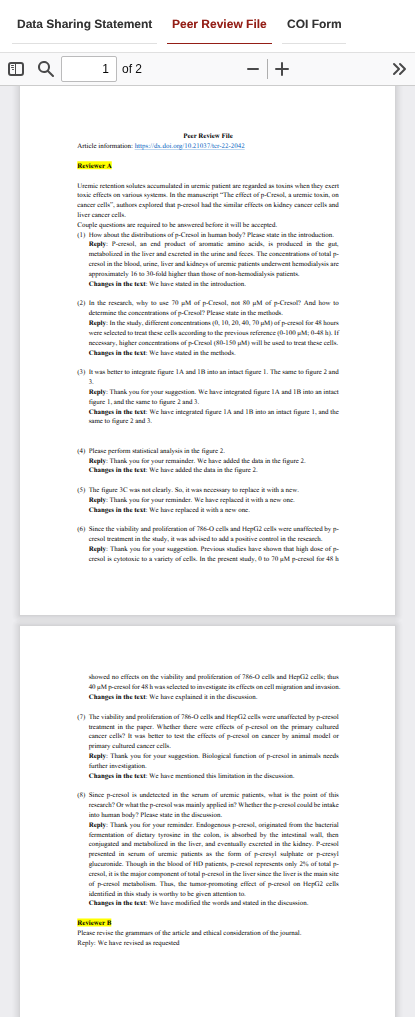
#include "include/core/SkBlurTypes.h"
#include "include/core/SkCanvas.h"
#include "include/core/SkData.h"
#include "include/core/SkFont.h"
#include "include/core/SkFontMgr.h"
#include "include/core/SkImage.h"
#include "include/core/SkMaskFilter.h"
#include "include/core/SkPaint.h"
#include "include/core/SkPathBuilder.h"
#include "include/core/SkTextBlob.h"
#include "include/effects/SkDashPathEffect.h"
#include "include/effects/SkGradientShader.h"
#include "include/utils/SkParsePath.h"

extern sk_sp<SkFontMgr> fontMgr;

static SkFont font(const char* family, int weight, float size, bool italic = false) {
    SkFontStyle style(weight, SkFontStyle::kNormal_Width,
        italic ? SkFontStyle::kItalic_Slant : SkFontStyle::kUpright_Slant);
    SkFont result(fontMgr->matchFamilyStyle(family, style), size);
    result.setSubpixel(true);
    return result;
}

static void drawLabel(SkCanvas* canvas, const char* s, float x, float y, const SkFont& font, SkColor color) {
    SkPaint ink(SkColor4f::FromColor(color));
    ink.setAntiAlias(true);
    canvas->drawString(s, x, y, font, ink);
}

static void fillRect(SkCanvas* canvas, float x, float y, float w, float h, SkColor color) {
    SkPaint ink(SkColor4f::FromColor(color));
    ink.setAntiAlias(true);
    canvas->drawRect(SkRect::MakeXYWH(x, y, w, h), ink);
}

static void drawPhoto(SkCanvas* canvas, const char* path, float x, float y, float w, float h) {
    auto image = SkImages::DeferredFromEncodedData(SkData::MakeFromFileName(path));
    canvas->drawImageRect(image, SkRect::MakeXYWH(x, y, w, h), SkSamplingOptions());
}

void draw(SkCanvas* canvas) {
    SkPaint paint;
    paint.setAntiAlias(true);
    canvas->clear(0xFFFFFFFF);
    fillRect(canvas, 0, 52, 415, 1, 0xFFE0E0E0);
    fillRect(canvas, 12, 43, 145, 1, 0xFFE0E0E0);
    SkFont font1 = font("Liberation Sans", 700, 12);
    drawLabel(canvas, "Data Sharing Statement", 17, 28, font1, 0xFF333333);
    fillRect(canvas, 167, 43, 105, 1, 0xFF941E16);
    drawLabel(canvas, "Peer Review File", 172, 28, font1, 0xFF941E16);
    fillRect(canvas, 282, 43, 64, 1, 0xFFE0E0E0);
    drawLabel(canvas, "COI Form", 287, 28, font1, 0xFF333333);
    drawPhoto(canvas, "assets/img1.png", 0, 53, 415, 964);
}
